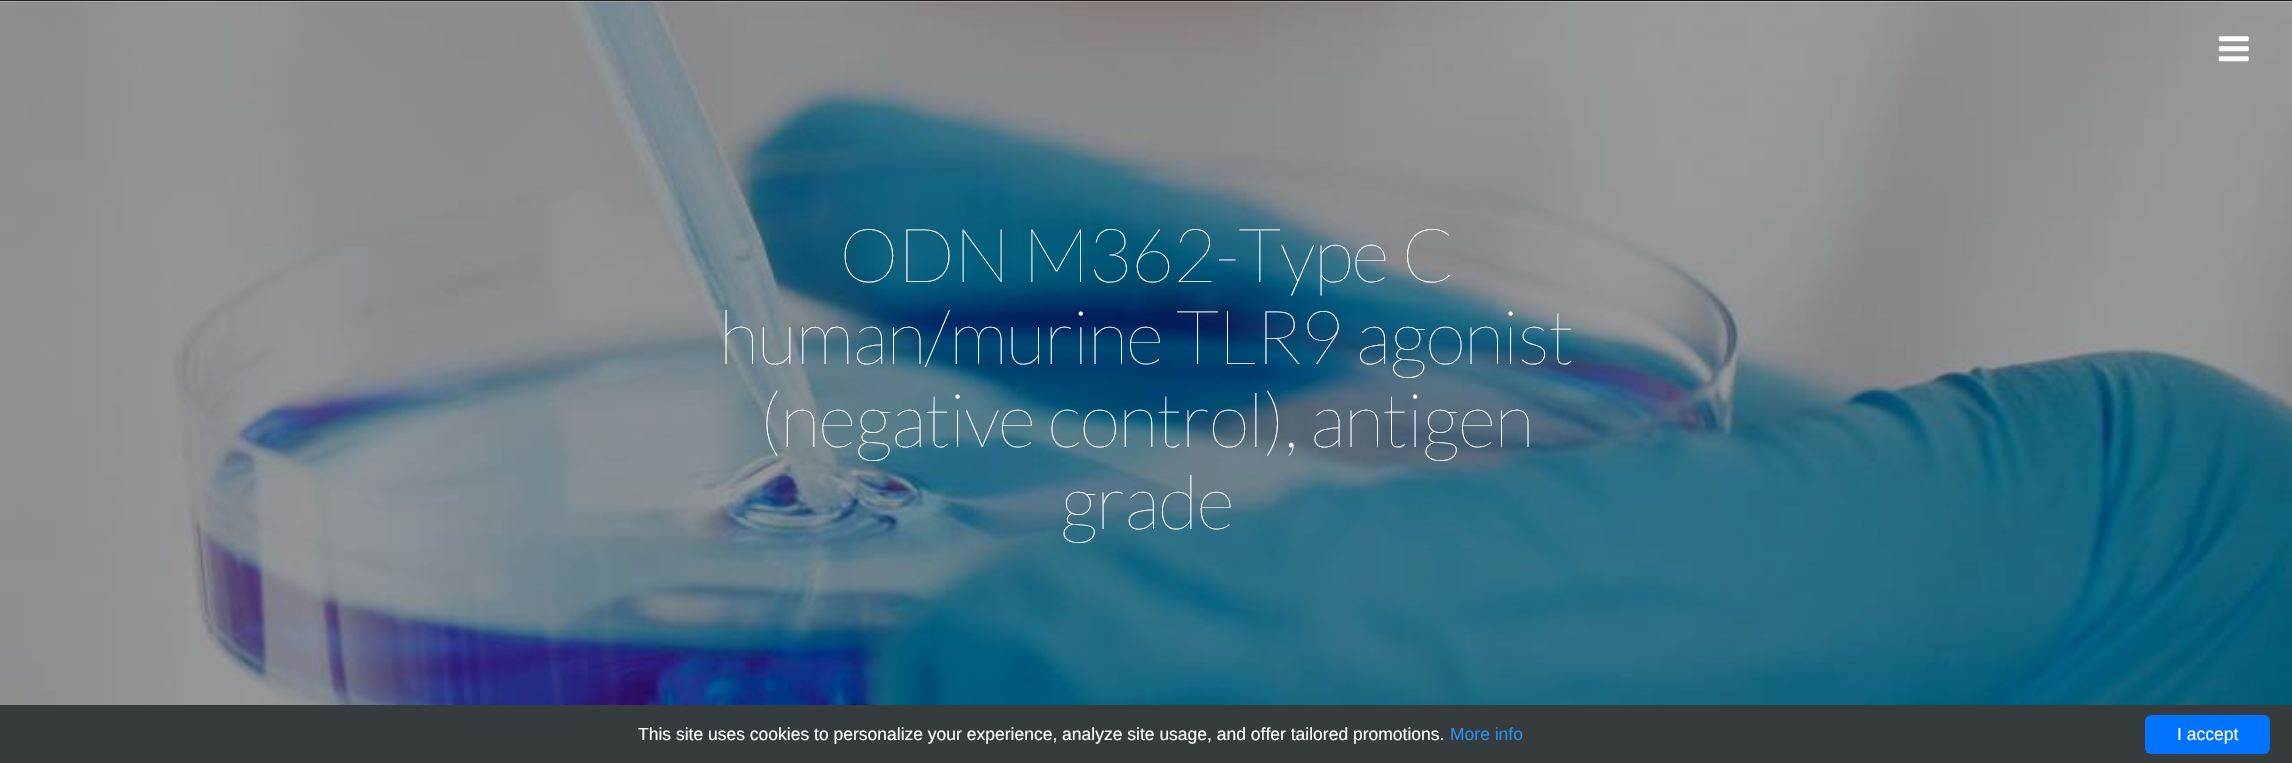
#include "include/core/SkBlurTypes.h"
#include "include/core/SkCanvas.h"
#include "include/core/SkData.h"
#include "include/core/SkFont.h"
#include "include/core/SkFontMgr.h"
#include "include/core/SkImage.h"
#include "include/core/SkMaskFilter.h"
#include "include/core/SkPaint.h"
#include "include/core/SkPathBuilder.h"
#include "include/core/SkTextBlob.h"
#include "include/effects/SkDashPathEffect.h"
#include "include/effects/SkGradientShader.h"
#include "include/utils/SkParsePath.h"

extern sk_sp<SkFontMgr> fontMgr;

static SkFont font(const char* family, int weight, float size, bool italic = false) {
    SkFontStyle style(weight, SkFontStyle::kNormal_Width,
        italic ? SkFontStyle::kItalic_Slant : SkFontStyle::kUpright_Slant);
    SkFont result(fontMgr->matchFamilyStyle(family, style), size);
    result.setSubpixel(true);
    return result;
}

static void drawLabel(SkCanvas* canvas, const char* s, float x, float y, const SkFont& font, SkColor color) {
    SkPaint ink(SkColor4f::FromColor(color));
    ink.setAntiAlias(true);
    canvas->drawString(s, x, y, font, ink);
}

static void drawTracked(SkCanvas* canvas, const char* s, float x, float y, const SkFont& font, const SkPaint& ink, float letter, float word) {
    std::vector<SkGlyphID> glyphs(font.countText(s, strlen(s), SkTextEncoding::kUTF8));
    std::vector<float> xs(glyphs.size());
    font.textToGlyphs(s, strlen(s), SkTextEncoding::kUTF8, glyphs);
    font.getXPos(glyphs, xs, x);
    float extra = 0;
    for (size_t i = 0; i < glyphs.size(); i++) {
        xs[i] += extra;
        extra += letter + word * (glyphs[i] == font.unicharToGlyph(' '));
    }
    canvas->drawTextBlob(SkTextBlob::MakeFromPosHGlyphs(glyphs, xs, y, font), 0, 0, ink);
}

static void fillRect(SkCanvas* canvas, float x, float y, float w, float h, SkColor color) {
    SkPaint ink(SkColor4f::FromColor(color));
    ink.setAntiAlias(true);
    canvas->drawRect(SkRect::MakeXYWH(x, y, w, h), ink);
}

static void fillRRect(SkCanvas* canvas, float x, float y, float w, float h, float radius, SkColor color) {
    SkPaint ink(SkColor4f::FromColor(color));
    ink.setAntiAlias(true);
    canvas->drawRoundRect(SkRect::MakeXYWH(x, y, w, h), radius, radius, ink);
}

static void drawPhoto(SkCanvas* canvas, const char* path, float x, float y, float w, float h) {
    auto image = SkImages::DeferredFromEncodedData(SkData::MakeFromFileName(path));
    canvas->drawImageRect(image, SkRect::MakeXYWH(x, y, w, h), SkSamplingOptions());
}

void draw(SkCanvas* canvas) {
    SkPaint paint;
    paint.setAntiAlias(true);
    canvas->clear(0xFFFFFFFF);
    fillRect(canvas, 0, 0, 2292, 1, 0xFF1F1F1F);
    drawPhoto(canvas, "assets/img2.png", 0, 1, 2292, 704);
    drawPhoto(canvas, "assets/img1.png", 2218, 36, 31, 26);
    SkFont font1 = font("Lato", 100, 75);
    paint.setColor(0xFFFFFFFF);
    drawTracked(canvas, "ODN M362-Type C", 839, 282, font1, paint, -1.25f, 0);
    drawTracked(canvas, "human/murine TLR9 agonist", 719, 364, font1, paint, -1.25f, 0);
    drawTracked(canvas, "(negative control), antigen", 759, 447, font1, paint, -1.25f, 0);
    drawTracked(canvas, "grade", 1060, 529, font1, paint, -1.25f, 0);
    fillRect(canvas, 0, 705, 2292, 58, 0xFF363B3E);
    SkFont font2 = font("Liberation Sans", 400, 17.5f);
    drawLabel(canvas, "This site uses cookies to personalize your experience, analyze site usage, and offer tailored promotions.", 638, 740, font2, 0xFFFFFFFF);
    drawLabel(canvas, "More info", 1450, 740, font2, 0xFF2990EA);
    fillRRect(canvas, 2145, 715, 125, 39, 6, 0xFF0073FF);
    drawLabel(canvas, "I accept", 2177, 740, font2, 0xFFFFFFFF);
}
